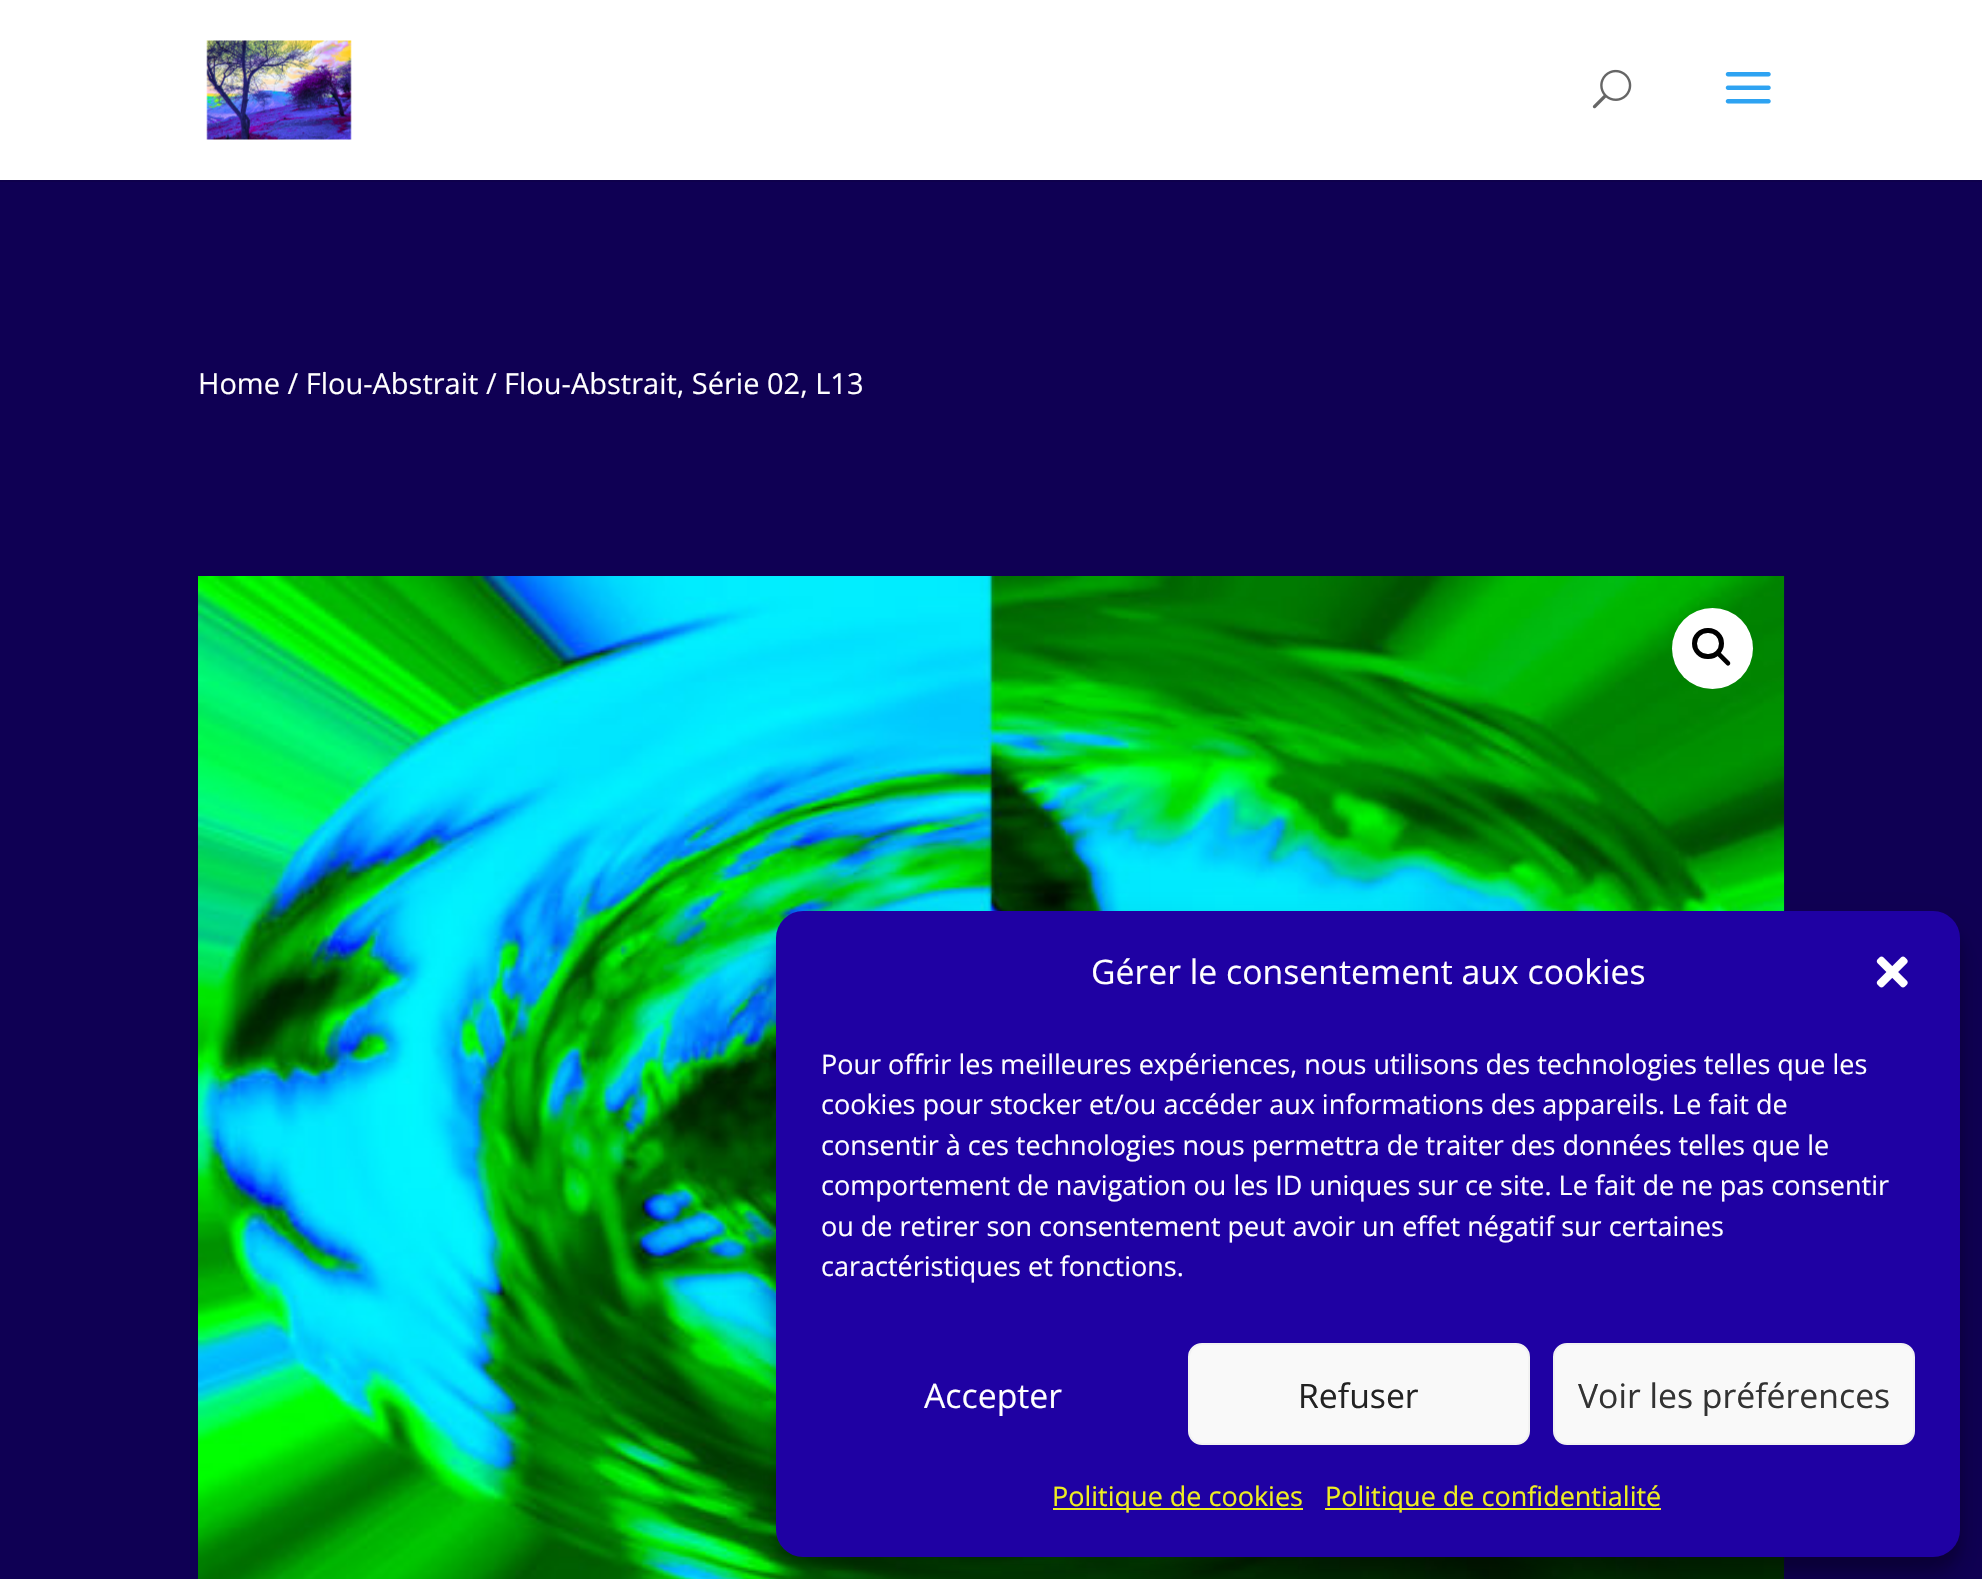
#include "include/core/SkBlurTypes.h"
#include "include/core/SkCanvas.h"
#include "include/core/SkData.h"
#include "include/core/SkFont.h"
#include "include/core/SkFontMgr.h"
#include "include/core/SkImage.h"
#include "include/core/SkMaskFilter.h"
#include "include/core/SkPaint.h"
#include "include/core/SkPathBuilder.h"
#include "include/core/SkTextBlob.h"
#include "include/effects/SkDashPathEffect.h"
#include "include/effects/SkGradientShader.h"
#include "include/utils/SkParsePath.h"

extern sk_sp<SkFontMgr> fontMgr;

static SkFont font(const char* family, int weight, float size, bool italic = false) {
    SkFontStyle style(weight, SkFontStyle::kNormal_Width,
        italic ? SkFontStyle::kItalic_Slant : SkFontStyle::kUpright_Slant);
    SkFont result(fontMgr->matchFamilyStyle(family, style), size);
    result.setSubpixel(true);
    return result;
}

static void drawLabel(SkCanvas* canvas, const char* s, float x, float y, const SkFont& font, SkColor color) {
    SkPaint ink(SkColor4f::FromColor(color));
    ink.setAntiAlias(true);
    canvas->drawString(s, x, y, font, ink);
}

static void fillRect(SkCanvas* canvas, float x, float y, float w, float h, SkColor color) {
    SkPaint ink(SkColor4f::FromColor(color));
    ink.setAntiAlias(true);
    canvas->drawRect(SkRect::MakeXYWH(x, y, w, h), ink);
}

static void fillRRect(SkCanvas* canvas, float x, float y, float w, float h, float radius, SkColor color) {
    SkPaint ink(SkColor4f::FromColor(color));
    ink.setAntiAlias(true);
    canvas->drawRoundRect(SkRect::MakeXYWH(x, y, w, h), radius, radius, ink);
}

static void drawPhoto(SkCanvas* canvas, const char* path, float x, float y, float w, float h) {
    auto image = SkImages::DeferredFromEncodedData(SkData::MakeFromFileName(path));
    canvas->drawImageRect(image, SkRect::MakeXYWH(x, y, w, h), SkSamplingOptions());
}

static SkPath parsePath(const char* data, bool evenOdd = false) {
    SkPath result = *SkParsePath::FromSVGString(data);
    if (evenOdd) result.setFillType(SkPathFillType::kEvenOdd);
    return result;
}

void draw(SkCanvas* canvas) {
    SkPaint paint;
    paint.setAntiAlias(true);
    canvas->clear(0xFF0F0054);
    fillRect(canvas, 0, 180, 1982, 2, 0xFF0E004C);
    fillRect(canvas, 0, 0, 1982, 180, 0xFFFFFFFF);
    drawPhoto(canvas, "assets/img1.png", 206, 40, 146, 100);
    drawPhoto(canvas, "assets/img2.png", 1592, 69, 40, 40);
    drawPhoto(canvas, "assets/img3.png", 1725, 72, 46, 32);
    SkFont font1 = font("Open Sans", 400, 29);
    drawLabel(canvas, "Home / Flou-Abstrait / Flou-Abstrait, Série 02, L13", 198, 394, font1, 0xFFFFFFFF);
    drawPhoto(canvas, "assets/img4.png", 198, 576, 1587, 1003);
    paint.setColor(0xFFFFFFFF);
    canvas->drawCircle(1712.5f, 648.5f, 40.5f, paint);
    paint.setStroke(true);
    paint.setStrokeWidth(5);
    paint.setColor(0xFF000000);
    canvas->drawRoundRect(SkRect::MakeXYWH(1694.5f, 630.5f, 27, 26), 13, 13, paint);
    paint.setStroke(false);
    canvas->drawPath(parsePath("M1717 652C1718 651.5 1719 651.5 1720 652L1729.5 661.5C1730.5 662.5 1730.5 664 1729.5 665C1728.5 666 1727.5 666 1726.5 665L1717 655.5C1716 654.5 1716 653 1717 652Z"), paint);
    paint.setColor(0x3B000000);
    paint.setMaskFilter(SkMaskFilter::MakeBlur(kNormal_SkBlurStyle, 7));
    canvas->drawRoundRect(SkRect::MakeXYWH(776, 925, 1184, 646), 27, 27, paint);
    paint.setMaskFilter(nullptr);
    paint.setColor(0x30000000);
    paint.setMaskFilter(SkMaskFilter::MakeBlur(kNormal_SkBlurStyle, 22.5f));
    canvas->drawRoundRect(SkRect::MakeXYWH(776, 934, 1184, 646), 27, 27, paint);
    paint.setMaskFilter(nullptr);
    fillRRect(canvas, 776, 911, 1184, 646, 27, 0xFF1F01A3);
    SkFont font2 = font("Open Sans", 400, 33.75f);
    drawLabel(canvas, "Gérer le consentement aux cookies", 1091, 984, font2, 0xFFFFFFFF);
    drawPhoto(canvas, "assets/img5.png", 1876, 956, 32, 32);
    SkFont font3 = font("Open Sans", 400, 27);
    drawLabel(canvas, "Pour offrir les meilleures expériences, nous utilisons des technologies telles que les", 821, 1074, font3, 0xFFFFFFFF);
    drawLabel(canvas, "cookies pour stocker et/ou accéder aux informations des appareils. Le fait de", 821, 1114, font3, 0xFFFFFFFF);
    drawLabel(canvas, "consentir à ces technologies nous permettra de traiter des données telles que le", 821, 1155, font3, 0xFFFFFFFF);
    drawLabel(canvas, "comportement de navigation ou les ID uniques sur ce site. Le fait de ne pas consentir", 821, 1195, font3, 0xFFFFFFFF);
    drawLabel(canvas, "ou de retirer son consentement peut avoir un effet négatif sur certaines", 821, 1236, font3, 0xFFFFFFFF);
    drawLabel(canvas, "caractéristiques et fonctions.", 821, 1276, font3, 0xFFFFFFFF);
    drawLabel(canvas, "Accepter", 924, 1408, font2, 0xFFFFFFFF);
    paint.setColor(0xFFF9F9F9);
    canvas->drawRoundRect(SkRect::MakeXYWH(1189, 1344, 340, 100), 13, 13, paint);
    paint.setStroke(true);
    paint.setStrokeWidth(2);
    paint.setColor(0xFFF2F2F2);
    canvas->drawRoundRect(SkRect::MakeXYWH(1189, 1344, 340, 100), 13, 13, paint);
    drawLabel(canvas, "Refuser", 1298, 1408, font2, 0xFF222222);
    paint.setStroke(false);
    paint.setColor(0xFFF9F9F9);
    canvas->drawRoundRect(SkRect::MakeXYWH(1554, 1344, 360, 100), 13, 13, paint);
    paint.setStroke(true);
    paint.setColor(0xFFF2F2F2);
    canvas->drawRoundRect(SkRect::MakeXYWH(1554, 1344, 360, 100), 13, 13, paint);
    drawLabel(canvas, "Voir les préférences", 1578, 1408, font2, 0xFF333333);
    fillRect(canvas, 1053, 1508, 250, 2, 0xFFEEEE22);
    drawLabel(canvas, "Politique de cookies", 1052, 1506, font3, 0xFFEEEE22);
    fillRect(canvas, 1325, 1508, 336, 2, 0xFFEEEE22);
    drawLabel(canvas, "Politique de confidentialité", 1325, 1506, font3, 0xFFEEEE22);
}
